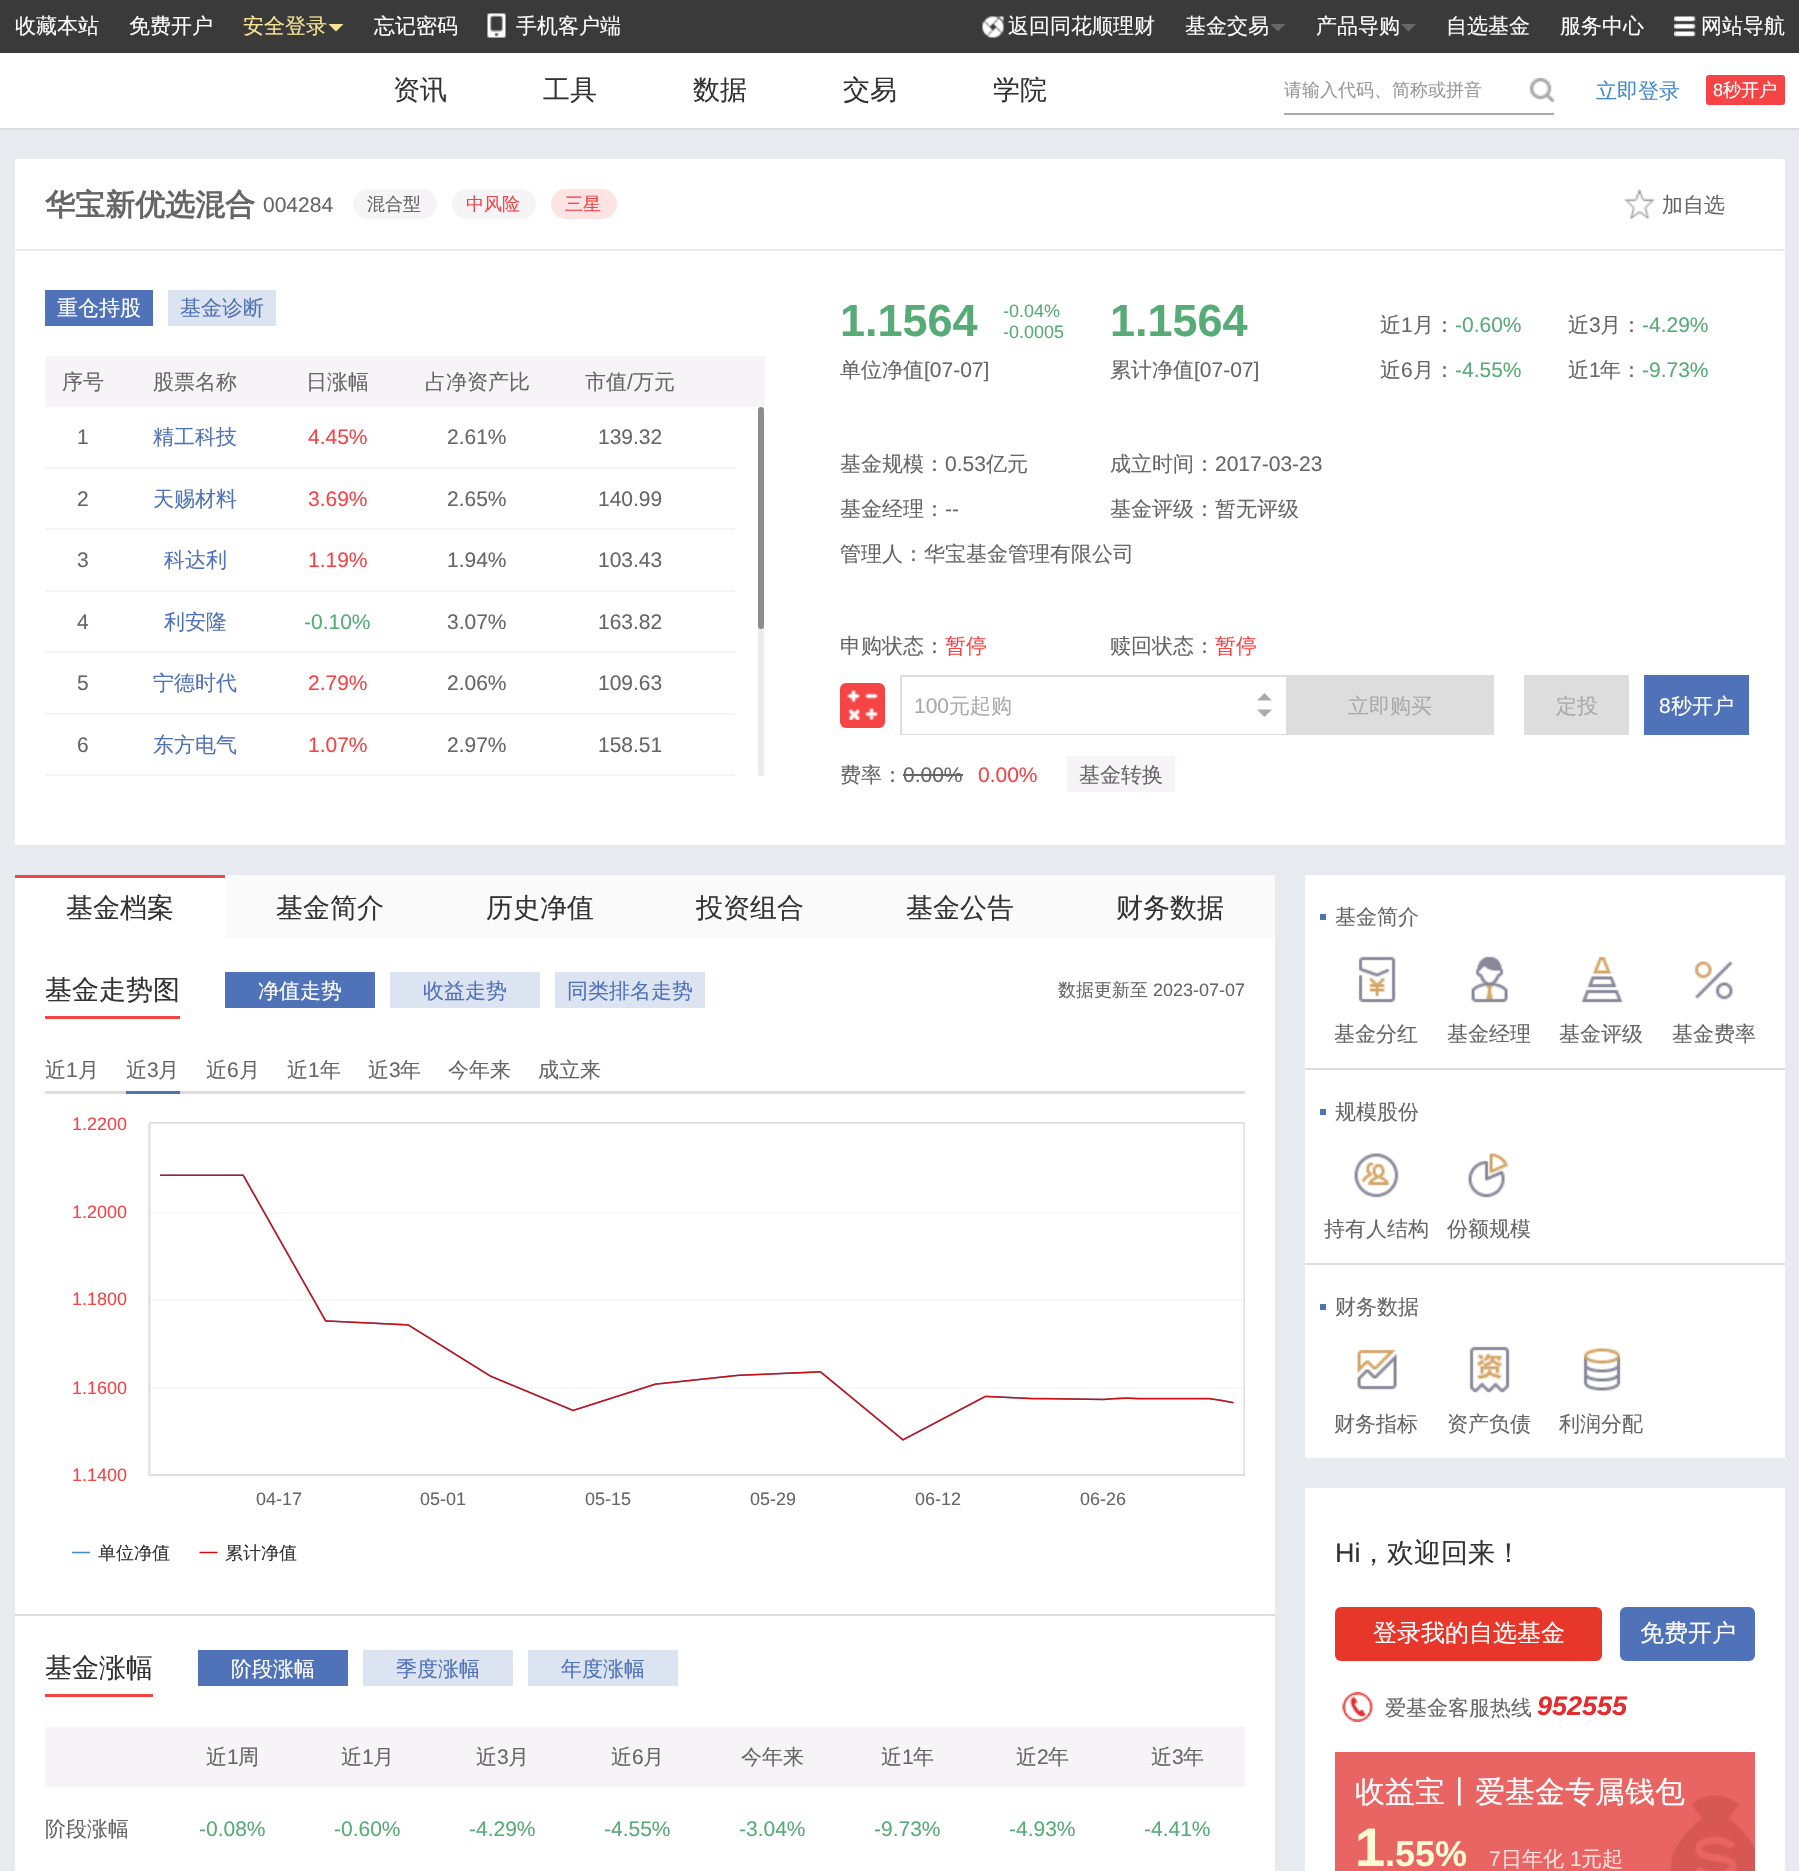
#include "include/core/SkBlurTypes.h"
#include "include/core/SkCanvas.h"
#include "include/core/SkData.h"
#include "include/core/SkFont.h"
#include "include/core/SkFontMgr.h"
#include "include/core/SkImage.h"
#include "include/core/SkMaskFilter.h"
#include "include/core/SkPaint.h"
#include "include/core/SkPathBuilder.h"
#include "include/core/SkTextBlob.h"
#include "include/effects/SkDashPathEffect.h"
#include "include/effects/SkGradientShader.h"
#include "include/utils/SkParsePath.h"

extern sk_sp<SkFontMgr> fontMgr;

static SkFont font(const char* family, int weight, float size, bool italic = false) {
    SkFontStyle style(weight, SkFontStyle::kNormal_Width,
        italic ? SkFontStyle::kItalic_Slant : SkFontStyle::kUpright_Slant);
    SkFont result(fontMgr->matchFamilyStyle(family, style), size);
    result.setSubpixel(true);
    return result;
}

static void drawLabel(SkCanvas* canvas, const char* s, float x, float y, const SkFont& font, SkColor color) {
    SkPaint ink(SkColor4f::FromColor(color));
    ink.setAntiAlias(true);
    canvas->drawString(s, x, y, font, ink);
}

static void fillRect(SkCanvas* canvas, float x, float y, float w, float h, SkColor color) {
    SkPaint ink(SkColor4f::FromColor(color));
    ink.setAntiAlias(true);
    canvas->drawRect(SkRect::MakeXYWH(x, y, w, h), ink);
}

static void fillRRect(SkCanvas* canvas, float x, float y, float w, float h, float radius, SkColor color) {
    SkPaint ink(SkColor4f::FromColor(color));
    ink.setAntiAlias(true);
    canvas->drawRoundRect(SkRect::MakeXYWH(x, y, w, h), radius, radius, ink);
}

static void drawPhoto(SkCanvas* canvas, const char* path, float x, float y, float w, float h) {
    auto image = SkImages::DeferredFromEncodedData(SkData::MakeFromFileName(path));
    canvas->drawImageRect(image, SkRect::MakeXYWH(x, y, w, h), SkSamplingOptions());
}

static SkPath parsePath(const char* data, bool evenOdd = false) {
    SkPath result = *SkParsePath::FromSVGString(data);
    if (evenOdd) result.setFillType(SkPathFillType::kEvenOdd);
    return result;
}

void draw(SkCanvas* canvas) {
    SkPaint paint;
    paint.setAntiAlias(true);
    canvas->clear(0xFFE7EBEF);
    fillRect(canvas, 0, 0, 1799, 53, 0xFF3A3A3A);
    SkFont font1 = font("WenQuanYi Zen Hei", 500, 21);
    drawLabel(canvas, "收藏本站", 15, 33, font1, 0xFFFFFFFF);
    drawLabel(canvas, "免费开户", 129, 33, font1, 0xFFFFFFFF);
    drawLabel(canvas, "安全登录", 243, 33, font1, 0xFFF7E492);
    paint.setColor(0xFFF7E492);
    canvas->drawPath(parsePath("M328.5 24H343.5L336 31.5Z"), paint);
    drawLabel(canvas, "忘记密码", 374, 33, font1, 0xFFFFFFFF);
    drawPhoto(canvas, "assets/img1.png", 487, 13, 19, 25);
    drawLabel(canvas, "手机客户端", 516, 33, font1, 0xFFFFFFFF);
    drawPhoto(canvas, "assets/img2.png", 982, 16, 22, 22);
    drawLabel(canvas, "返回同花顺理财", 1008, 33, font1, 0xFFFFFFFF);
    drawLabel(canvas, "基金交易", 1185, 33, font1, 0xFFFFFFFF);
    paint.setColor(0xFF68686A);
    canvas->drawPath(parsePath("M1270.5 24H1285.5L1278 31.5Z"), paint);
    drawLabel(canvas, "产品导购", 1316, 33, font1, 0xFFFFFFFF);
    canvas->drawPath(parsePath("M1401 24H1416L1408.5 31.5Z"), paint);
    drawLabel(canvas, "自选基金", 1446, 33, font1, 0xFFFFFFFF);
    drawLabel(canvas, "服务中心", 1560, 33, font1, 0xFFFFFFFF);
    drawPhoto(canvas, "assets/img3.png", 1674, 16, 22, 21);
    drawLabel(canvas, "网站导航", 1701, 33, font1, 0xFFFFFFFF);
    fillRect(canvas, 0, 53, 1799, 75, 0xFFFFFFFF);
    fillRect(canvas, 0, 128, 1799, 2, 0xFFDDDDDD);
    SkFont font2 = font("WenQuanYi Zen Hei", 500, 27);
    drawLabel(canvas, "资讯", 393, 99, font2, 0xFF333333);
    drawLabel(canvas, "工具", 543, 99, font2, 0xFF333333);
    drawLabel(canvas, "数据", 693, 99, font2, 0xFF333333);
    drawLabel(canvas, "交易", 843, 99, font2, 0xFF333333);
    drawLabel(canvas, "学院", 993, 99, font2, 0xFF333333);
    fillRect(canvas, 1284, 113, 270, 2, 0xFFAAAAAA);
    SkFont font3 = font("WenQuanYi Zen Hei", 500, 18);
    drawLabel(canvas, "请输入代码、简称或拼音", 1284, 96, font3, 0xFF999999);
    drawPhoto(canvas, "assets/img4.png", 1530, 78, 24, 24);
    drawLabel(canvas, "立即登录", 1596, 98, font1, 0xFF4489CA);
    fillRRect(canvas, 1706, 75, 79, 30, 3, 0xFFF44446);
    SkFont font4 = font("Liberation Sans", 400, 18);
    drawLabel(canvas, "8", 1713, 96, font4, 0xFFFFFFFF);
    drawLabel(canvas, "秒开户", 1723, 96, font3, 0xFFFFFFFF);
    fillRect(canvas, 15, 159, 1770, 686, 0xFFFFFFFF);
    fillRect(canvas, 15, 249, 1770, 2, 0xFFE7EBEF);
    SkFont font5 = font("WenQuanYi Zen Hei", 700, 30);
    drawLabel(canvas, "华宝新优选混合", 45, 215, font5, 0xFF666666);
    SkFont font6 = font("Liberation Sans", 400, 21);
    drawLabel(canvas, "004284", 263, 212, font6, 0xFF666666);
    fillRRect(canvas, 353, 189, 84, 30, 15, 0xFFF6F4F7);
    drawLabel(canvas, "混合型", 367, 210, font3, 0xFF666666);
    fillRRect(canvas, 452, 189, 84, 30, 15, 0xFFF6F4F7);
    drawLabel(canvas, "中风险", 466, 210, font3, 0xFFF44446);
    fillRRect(canvas, 551, 189, 66, 30, 15, 0xFFFDE3E3);
    drawLabel(canvas, "三星", 565, 210, font3, 0xFFF44446);
    drawPhoto(canvas, "assets/img5.png", 1624, 189, 31, 30);
    drawLabel(canvas, "加自选", 1662, 212, font1, 0xFF666666);
    fillRect(canvas, 45, 290, 108, 36, 0xFF5072B8);
    drawLabel(canvas, "重仓持股", 57, 315, font1, 0xFFFFFFFF);
    fillRect(canvas, 168, 290, 108, 36, 0xFFDCE3F1);
    drawLabel(canvas, "基金诊断", 180, 315, font1, 0xFF5072B8);
    fillRect(canvas, 45, 356, 720, 51, 0xFFF6F4F7);
    drawLabel(canvas, "序号", 62, 389, font1, 0xFF666666);
    drawLabel(canvas, "股票名称", 153, 389, font1, 0xFF666666);
    drawLabel(canvas, "日涨幅", 306, 389, font1, 0xFF666666);
    drawLabel(canvas, "占净资产比", 425, 389, font1, 0xFF666666);
    drawLabel(canvas, "市值", 585, 389, font1, 0xFF666666);
    drawLabel(canvas, "/", 627, 389, font6, 0xFF666666);
    drawLabel(canvas, "万元", 633, 389, font1, 0xFF666666);
    fillRRect(canvas, 758, 407, 6, 369, 3, 0xFFEBEBEB);
    fillRect(canvas, 45, 467, 690, 2, 0xFFF6F4F7);
    drawLabel(canvas, "1", 77, 444, font6, 0xFF666666);
    drawLabel(canvas, "精工科技", 153, 444, font1, 0xFF5072B8);
    drawLabel(canvas, "4.45%", 308, 444, font6, 0xFFF44446);
    drawLabel(canvas, "2.61%", 447, 444, font6, 0xFF666666);
    drawLabel(canvas, "139.32", 598, 444, font6, 0xFF666666);
    fillRect(canvas, 45, 528, 690, 2, 0xFFF6F4F7);
    drawLabel(canvas, "2", 77, 506, font6, 0xFF666666);
    drawLabel(canvas, "天赐材料", 153, 506, font1, 0xFF5072B8);
    drawLabel(canvas, "3.69%", 308, 506, font6, 0xFFF44446);
    drawLabel(canvas, "2.65%", 447, 506, font6, 0xFF666666);
    drawLabel(canvas, "140.99", 598, 506, font6, 0xFF666666);
    fillRect(canvas, 45, 590, 690, 2, 0xFFF6F4F7);
    drawLabel(canvas, "3", 77, 567, font6, 0xFF666666);
    drawLabel(canvas, "科达利", 164, 567, font1, 0xFF5072B8);
    drawLabel(canvas, "1.19%", 308, 567, font6, 0xFFF44446);
    drawLabel(canvas, "1.94%", 447, 567, font6, 0xFF666666);
    drawLabel(canvas, "103.43", 598, 567, font6, 0xFF666666);
    fillRect(canvas, 45, 651, 690, 2, 0xFFF6F4F7);
    drawLabel(canvas, "4", 77, 629, font6, 0xFF666666);
    drawLabel(canvas, "利安隆", 164, 629, font1, 0xFF5072B8);
    drawLabel(canvas, "-0.10%", 304, 629, font6, 0xFF57AB76);
    drawLabel(canvas, "3.07%", 447, 629, font6, 0xFF666666);
    drawLabel(canvas, "163.82", 598, 629, font6, 0xFF666666);
    fillRect(canvas, 45, 713, 690, 2, 0xFFF6F4F7);
    drawLabel(canvas, "5", 77, 690, font6, 0xFF666666);
    drawLabel(canvas, "宁德时代", 153, 690, font1, 0xFF5072B8);
    drawLabel(canvas, "2.79%", 308, 690, font6, 0xFFF44446);
    drawLabel(canvas, "2.06%", 447, 690, font6, 0xFF666666);
    drawLabel(canvas, "109.63", 598, 690, font6, 0xFF666666);
    fillRect(canvas, 45, 774, 690, 2, 0xFFF6F4F7);
    drawLabel(canvas, "6", 77, 752, font6, 0xFF666666);
    drawLabel(canvas, "东方电气", 153, 752, font1, 0xFF5072B8);
    drawLabel(canvas, "1.07%", 308, 752, font6, 0xFFF44446);
    drawLabel(canvas, "2.97%", 447, 752, font6, 0xFF666666);
    drawLabel(canvas, "158.51", 598, 752, font6, 0xFF666666);
    fillRRect(canvas, 758, 407, 6, 222, 3, 0x66000000);
    SkFont font7 = font("Liberation Sans", 700, 45);
    drawLabel(canvas, "1.1564", 840, 336, font7, 0xFF57AB76);
    drawLabel(canvas, "-0.04%", 1003, 317, font4, 0xFF57AB76);
    drawLabel(canvas, "-0.0005", 1003, 338, font4, 0xFF57AB76);
    drawLabel(canvas, "单位净值", 840, 377, font1, 0xFF666666);
    drawLabel(canvas, "[07-07]", 924, 377, font6, 0xFF666666);
    drawLabel(canvas, "1.1564", 1110, 336, font7, 0xFF57AB76);
    drawLabel(canvas, "累计净值", 1110, 377, font1, 0xFF666666);
    drawLabel(canvas, "[07-07]", 1194, 377, font6, 0xFF666666);
    drawLabel(canvas, "近", 1380, 332, font1, 0xFF666666);
    drawLabel(canvas, "1", 1401, 332, font6, 0xFF666666);
    drawLabel(canvas, "月：", 1413, 332, font1, 0xFF666666);
    drawLabel(canvas, "-0.60%", 1455, 332, font6, 0xFF57AB76);
    drawLabel(canvas, "近", 1568, 332, font1, 0xFF666666);
    drawLabel(canvas, "3", 1589, 332, font6, 0xFF666666);
    drawLabel(canvas, "月：", 1600, 332, font1, 0xFF666666);
    drawLabel(canvas, "-4.29%", 1642, 332, font6, 0xFF57AB76);
    drawLabel(canvas, "近", 1380, 377, font1, 0xFF666666);
    drawLabel(canvas, "6", 1401, 377, font6, 0xFF666666);
    drawLabel(canvas, "月：", 1413, 377, font1, 0xFF666666);
    drawLabel(canvas, "-4.55%", 1455, 377, font6, 0xFF57AB76);
    drawLabel(canvas, "近", 1568, 377, font1, 0xFF666666);
    drawLabel(canvas, "1", 1589, 377, font6, 0xFF666666);
    drawLabel(canvas, "年：", 1600, 377, font1, 0xFF666666);
    drawLabel(canvas, "-9.73%", 1642, 377, font6, 0xFF57AB76);
    drawLabel(canvas, "基金规模：", 840, 471, font1, 0xFF666666);
    drawLabel(canvas, "0.53", 945, 471, font6, 0xFF666666);
    drawLabel(canvas, "亿元", 986, 471, font1, 0xFF666666);
    drawLabel(canvas, "成立时间：", 1110, 471, font1, 0xFF666666);
    drawLabel(canvas, "2017-03-23", 1215, 471, font6, 0xFF666666);
    drawLabel(canvas, "基金经理：", 840, 516, font1, 0xFF666666);
    drawLabel(canvas, "--", 945, 516, font6, 0xFF666666);
    drawLabel(canvas, "基金评级：暂无评级", 1110, 516, font1, 0xFF666666);
    drawLabel(canvas, "管理人：华宝基金管理有限公司", 840, 561, font1, 0xFF666666);
    drawLabel(canvas, "申购状态：", 840, 653, font1, 0xFF666666);
    drawLabel(canvas, "暂停", 945, 653, font1, 0xFFF44446);
    drawLabel(canvas, "赎回状态：", 1110, 653, font1, 0xFF666666);
    drawLabel(canvas, "暂停", 1215, 653, font1, 0xFFF44446);
    fillRRect(canvas, 840, 683, 45, 45, 6, 0xFFF44446);
    drawPhoto(canvas, "assets/img6.png", 847, 690, 31, 30);
    paint.setStroke(true);
    paint.setStrokeWidth(2);
    paint.setColor(0xFFDDDDDD);
    canvas->drawRect(SkRect::MakeXYWH(901, 676, 592, 58), paint);
    fillRect(canvas, 902, 733, 384, 1, 0xFFFFFFFF);
    drawLabel(canvas, "100", 914, 713, font6, 0xFFAAAAAA);
    drawLabel(canvas, "元起购", 949, 713, font1, 0xFFAAAAAA);
    paint.setStroke(false);
    paint.setColor(0xFFAAAAAA);
    canvas->drawPath(parsePath("M1272 700.5H1257L1264.5 693ZM1257 709.5H1272L1264.5 717Z"), paint);
    fillRect(canvas, 1286, 677, 206, 56, 0xFFDDDDDD);
    drawLabel(canvas, "立即购买", 1348, 713, font1, 0xFFAAAAAA);
    fillRect(canvas, 1524, 675, 105, 60, 0xFFDDDDDD);
    drawLabel(canvas, "定投", 1556, 713, font1, 0xFFAAAAAA);
    fillRect(canvas, 1644, 675, 105, 60, 0xFF5072B8);
    drawLabel(canvas, "8", 1659, 713, font6, 0xFFFFFFFF);
    drawLabel(canvas, "秒开户", 1671, 713, font1, 0xFFFFFFFF);
    drawLabel(canvas, "费率：", 840, 782, font1, 0xFF666666);
    drawLabel(canvas, "0.00%", 903, 782, font6, 0xFF666666);
    fillRect(canvas, 903, 774, 60, 2, 0xFF666666);
    drawLabel(canvas, "0.00%", 978, 782, font6, 0xFFF44446);
    fillRect(canvas, 1067, 756, 108, 36, 0xFFF6F4F7);
    drawLabel(canvas, "基金转换", 1079, 782, font1, 0xFF666666);
    fillRect(canvas, 15, 938, 1260, 933, 0xFFFFFFFF);
    fillRect(canvas, 225, 875, 1050, 63, 0xFFFAFAFA);
    fillRect(canvas, 15, 878, 210, 60, 0xFFFFFFFF);
    fillRect(canvas, 15, 875, 210, 3, 0xFFF44446);
    drawLabel(canvas, "基金档案", 66, 917, font2, 0xFF333333);
    drawLabel(canvas, "基金简介", 276, 917, font2, 0xFF333333);
    drawLabel(canvas, "历史净值", 486, 917, font2, 0xFF333333);
    drawLabel(canvas, "投资组合", 696, 917, font2, 0xFF333333);
    drawLabel(canvas, "基金公告", 906, 917, font2, 0xFF333333);
    drawLabel(canvas, "财务数据", 1116, 917, font2, 0xFF333333);
    fillRect(canvas, 15, 1614, 1260, 2, 0xFFDDDDDD);
    fillRect(canvas, 45, 1016, 135, 3, 0xFFF44446);
    drawLabel(canvas, "基金走势图", 45, 999, font2, 0xFF333333);
    fillRect(canvas, 225, 972, 150, 36, 0xFF5072B8);
    drawLabel(canvas, "净值走势", 258, 998, font1, 0xFFFFFFFF);
    fillRect(canvas, 390, 972, 150, 36, 0xFFDCE3F1);
    drawLabel(canvas, "收益走势", 423, 998, font1, 0xFF5072B8);
    fillRect(canvas, 555, 972, 150, 36, 0xFFDCE3F1);
    drawLabel(canvas, "同类排名走势", 567, 998, font1, 0xFF5072B8);
    drawLabel(canvas, "数据更新至", 1058, 996, font3, 0xFF666666);
    drawLabel(canvas, "2023-07-07", 1153, 996, font4, 0xFF666666);
    fillRect(canvas, 45, 1091, 1200, 3, 0xFFDDDDDD);
    drawLabel(canvas, "近", 45, 1077, font1, 0xFF666666);
    drawLabel(canvas, "1", 66, 1077, font6, 0xFF666666);
    drawLabel(canvas, "月", 78, 1077, font1, 0xFF666666);
    drawLabel(canvas, "近", 126, 1077, font1, 0xFF666666);
    drawLabel(canvas, "3", 147, 1077, font6, 0xFF666666);
    drawLabel(canvas, "月", 158, 1077, font1, 0xFF666666);
    drawLabel(canvas, "近", 206, 1077, font1, 0xFF666666);
    drawLabel(canvas, "6", 227, 1077, font6, 0xFF666666);
    drawLabel(canvas, "月", 239, 1077, font1, 0xFF666666);
    drawLabel(canvas, "近", 287, 1077, font1, 0xFF666666);
    drawLabel(canvas, "1", 308, 1077, font6, 0xFF666666);
    drawLabel(canvas, "年", 320, 1077, font1, 0xFF666666);
    drawLabel(canvas, "近", 368, 1077, font1, 0xFF666666);
    drawLabel(canvas, "3", 389, 1077, font6, 0xFF666666);
    drawLabel(canvas, "年", 400, 1077, font1, 0xFF666666);
    drawLabel(canvas, "今年来", 448, 1077, font1, 0xFF666666);
    drawLabel(canvas, "成立来", 538, 1077, font1, 0xFF666666);
    fillRect(canvas, 126, 1091, 54, 3, 0xFF5072B8);
    drawPhoto(canvas, "assets/img7.png", 72, 1122, 1173, 432);
    drawLabel(canvas, "1.2200", 72, 1130, font4, 0xFFF44446);
    drawLabel(canvas, "1.2000", 72, 1218, font4, 0xFFF44446);
    drawLabel(canvas, "1.1800", 72, 1305, font4, 0xFFF44446);
    drawLabel(canvas, "1.1600", 72, 1394, font4, 0xFFF44446);
    drawLabel(canvas, "1.1400", 72, 1481, font4, 0xFFF44446);
    drawLabel(canvas, "04-17", 256, 1505, font4, 0xFF666666);
    drawLabel(canvas, "05-01", 420, 1505, font4, 0xFF666666);
    drawLabel(canvas, "05-15", 585, 1505, font4, 0xFF666666);
    drawLabel(canvas, "05-29", 750, 1505, font4, 0xFF666666);
    drawLabel(canvas, "06-12", 915, 1505, font4, 0xFF666666);
    drawLabel(canvas, "06-26", 1080, 1505, font4, 0xFF666666);
    drawLabel(canvas, "单位净值", 98, 1559, font3, 0xFF333333);
    drawLabel(canvas, "累计净值", 225, 1559, font3, 0xFF333333);
    fillRect(canvas, 45, 1694, 108, 3, 0xFFF44446);
    drawLabel(canvas, "基金涨幅", 45, 1677, font2, 0xFF333333);
    fillRect(canvas, 198, 1650, 150, 36, 0xFF5072B8);
    drawLabel(canvas, "阶段涨幅", 231, 1676, font1, 0xFFFFFFFF);
    fillRect(canvas, 363, 1650, 150, 36, 0xFFDCE3F1);
    drawLabel(canvas, "季度涨幅", 396, 1676, font1, 0xFF5072B8);
    fillRect(canvas, 528, 1650, 150, 36, 0xFFDCE3F1);
    drawLabel(canvas, "年度涨幅", 561, 1676, font1, 0xFF5072B8);
    fillRect(canvas, 45, 1727, 1200, 60, 0xFFF6F4F7);
    drawLabel(canvas, "近", 206, 1764, font1, 0xFF666666);
    drawLabel(canvas, "1", 227, 1764, font6, 0xFF666666);
    drawLabel(canvas, "周", 238, 1764, font1, 0xFF666666);
    drawLabel(canvas, "近", 341, 1764, font1, 0xFF666666);
    drawLabel(canvas, "1", 362, 1764, font6, 0xFF666666);
    drawLabel(canvas, "月", 373, 1764, font1, 0xFF666666);
    drawLabel(canvas, "近", 476, 1764, font1, 0xFF666666);
    drawLabel(canvas, "3", 497, 1764, font6, 0xFF666666);
    drawLabel(canvas, "月", 508, 1764, font1, 0xFF666666);
    drawLabel(canvas, "近", 611, 1764, font1, 0xFF666666);
    drawLabel(canvas, "6", 632, 1764, font6, 0xFF666666);
    drawLabel(canvas, "月", 643, 1764, font1, 0xFF666666);
    drawLabel(canvas, "今年来", 741, 1764, font1, 0xFF666666);
    drawLabel(canvas, "近", 881, 1764, font1, 0xFF666666);
    drawLabel(canvas, "1", 902, 1764, font6, 0xFF666666);
    drawLabel(canvas, "年", 913, 1764, font1, 0xFF666666);
    drawLabel(canvas, "近", 1016, 1764, font1, 0xFF666666);
    drawLabel(canvas, "2", 1037, 1764, font6, 0xFF666666);
    drawLabel(canvas, "年", 1048, 1764, font1, 0xFF666666);
    drawLabel(canvas, "近", 1151, 1764, font1, 0xFF666666);
    drawLabel(canvas, "3", 1172, 1764, font6, 0xFF666666);
    drawLabel(canvas, "年", 1183, 1764, font1, 0xFF666666);
    drawLabel(canvas, "阶段涨幅", 45, 1836, font1, 0xFF666666);
    drawLabel(canvas, "-0.08%", 199, 1836, font6, 0xFF57AB76);
    drawLabel(canvas, "-0.60%", 334, 1836, font6, 0xFF57AB76);
    drawLabel(canvas, "-4.29%", 469, 1836, font6, 0xFF57AB76);
    drawLabel(canvas, "-4.55%", 604, 1836, font6, 0xFF57AB76);
    drawLabel(canvas, "-3.04%", 739, 1836, font6, 0xFF57AB76);
    drawLabel(canvas, "-9.73%", 874, 1836, font6, 0xFF57AB76);
    drawLabel(canvas, "-4.93%", 1009, 1836, font6, 0xFF57AB76);
    drawLabel(canvas, "-4.41%", 1144, 1836, font6, 0xFF57AB76);
    fillRect(canvas, 1305, 875, 480, 583, 0xFFFFFFFF);
    fillRect(canvas, 1305, 1068, 480, 2, 0xFFDDDDDD);
    fillRect(canvas, 1320, 914, 6, 6, 0xFF5072B8);
    drawLabel(canvas, "基金简介", 1335, 924, font1, 0xFF666666);
    drawPhoto(canvas, "assets/img8.png", 1358, 956, 38, 47);
    drawLabel(canvas, "基金分红", 1334, 1041, font1, 0xFF666666);
    drawPhoto(canvas, "assets/img9.png", 1471, 956, 37, 47);
    drawLabel(canvas, "基金经理", 1447, 1041, font1, 0xFF666666);
    drawPhoto(canvas, "assets/img10.png", 1580, 956, 44, 47);
    drawLabel(canvas, "基金评级", 1559, 1041, font1, 0xFF666666);
    drawPhoto(canvas, "assets/img11.png", 1694, 961, 39, 39);
    drawLabel(canvas, "基金费率", 1672, 1041, font1, 0xFF666666);
    fillRect(canvas, 1305, 1263, 480, 2, 0xFFDDDDDD);
    fillRect(canvas, 1320, 1109, 6, 6, 0xFF5072B8);
    drawLabel(canvas, "规模股份", 1335, 1119, font1, 0xFF666666);
    drawPhoto(canvas, "assets/img12.png", 1354, 1153, 45, 45);
    drawLabel(canvas, "持有人结构", 1324, 1236, font1, 0xFF666666);
    drawPhoto(canvas, "assets/img13.png", 1468, 1153, 41, 45);
    drawLabel(canvas, "份额规模", 1447, 1236, font1, 0xFF666666);
    fillRect(canvas, 1320, 1304, 6, 6, 0xFF5072B8);
    drawLabel(canvas, "财务数据", 1335, 1314, font1, 0xFF666666);
    drawPhoto(canvas, "assets/img14.png", 1357, 1349, 40, 41);
    drawLabel(canvas, "财务指标", 1334, 1431, font1, 0xFF666666);
    drawPhoto(canvas, "assets/img15.png", 1469, 1346, 41, 47);
    drawLabel(canvas, "资产负债", 1447, 1431, font1, 0xFF666666);
    drawPhoto(canvas, "assets/img16.png", 1583, 1348, 38, 43);
    drawLabel(canvas, "利润分配", 1559, 1431, font1, 0xFF666666);
    fillRect(canvas, 1305, 1488, 480, 383, 0xFFFFFFFF);
    SkFont font8 = font("Liberation Sans", 400, 27);
    drawLabel(canvas, "Hi", 1335, 1562, font8, 0xFF333333);
    drawLabel(canvas, "，欢迎回来！", 1360, 1562, font2, 0xFF333333);
    fillRRect(canvas, 1335, 1607, 267, 54, 6, 0xFFE6372A);
    SkFont font9 = font("WenQuanYi Zen Hei", 500, 24);
    drawLabel(canvas, "登录我的自选基金", 1373, 1641, font9, 0xFFFFFFFF);
    fillRRect(canvas, 1620, 1607, 135, 54, 6, 0xFF5072B8);
    drawLabel(canvas, "免费开户", 1640, 1641, font9, 0xFFFFFFFF);
    drawPhoto(canvas, "assets/img17.png", 1342, 1692, 31, 30);
    drawLabel(canvas, "爱基金客服热线", 1385, 1715, font1, 0xFF666666);
    SkFont font10 = font("Liberation Sans", 700, 27, true);
    drawLabel(canvas, "952555", 1537, 1715, font10, 0xFFE42C2E);
    drawPhoto(canvas, "assets/img18.png", 1335, 1752, 420, 119);
    SkFont font11 = font("WenQuanYi Zen Hei", 500, 30);
    drawLabel(canvas, "收益宝丨爱基金专属钱包", 1355, 1802, font11, 0xFFFFFFFF);
    SkFont font12 = font("Liberation Sans", 700, 54);
    drawLabel(canvas, "1", 1355, 1866, font12, 0xFFFEFAD4);
    SkFont font13 = font("Liberation Sans", 700, 36);
    drawLabel(canvas, ".55%", 1385, 1866, font13, 0xFFFEFAD4);
    drawLabel(canvas, "7", 1489, 1866, font6, 0xFFFFE0DE);
    drawLabel(canvas, "日年化", 1501, 1866, font1, 0xFFFFE0DE);
    drawLabel(canvas, "1", 1570, 1866, font6, 0xFFFFE0DE);
    drawLabel(canvas, "元起", 1581, 1866, font1, 0xFFFFE0DE);
}
